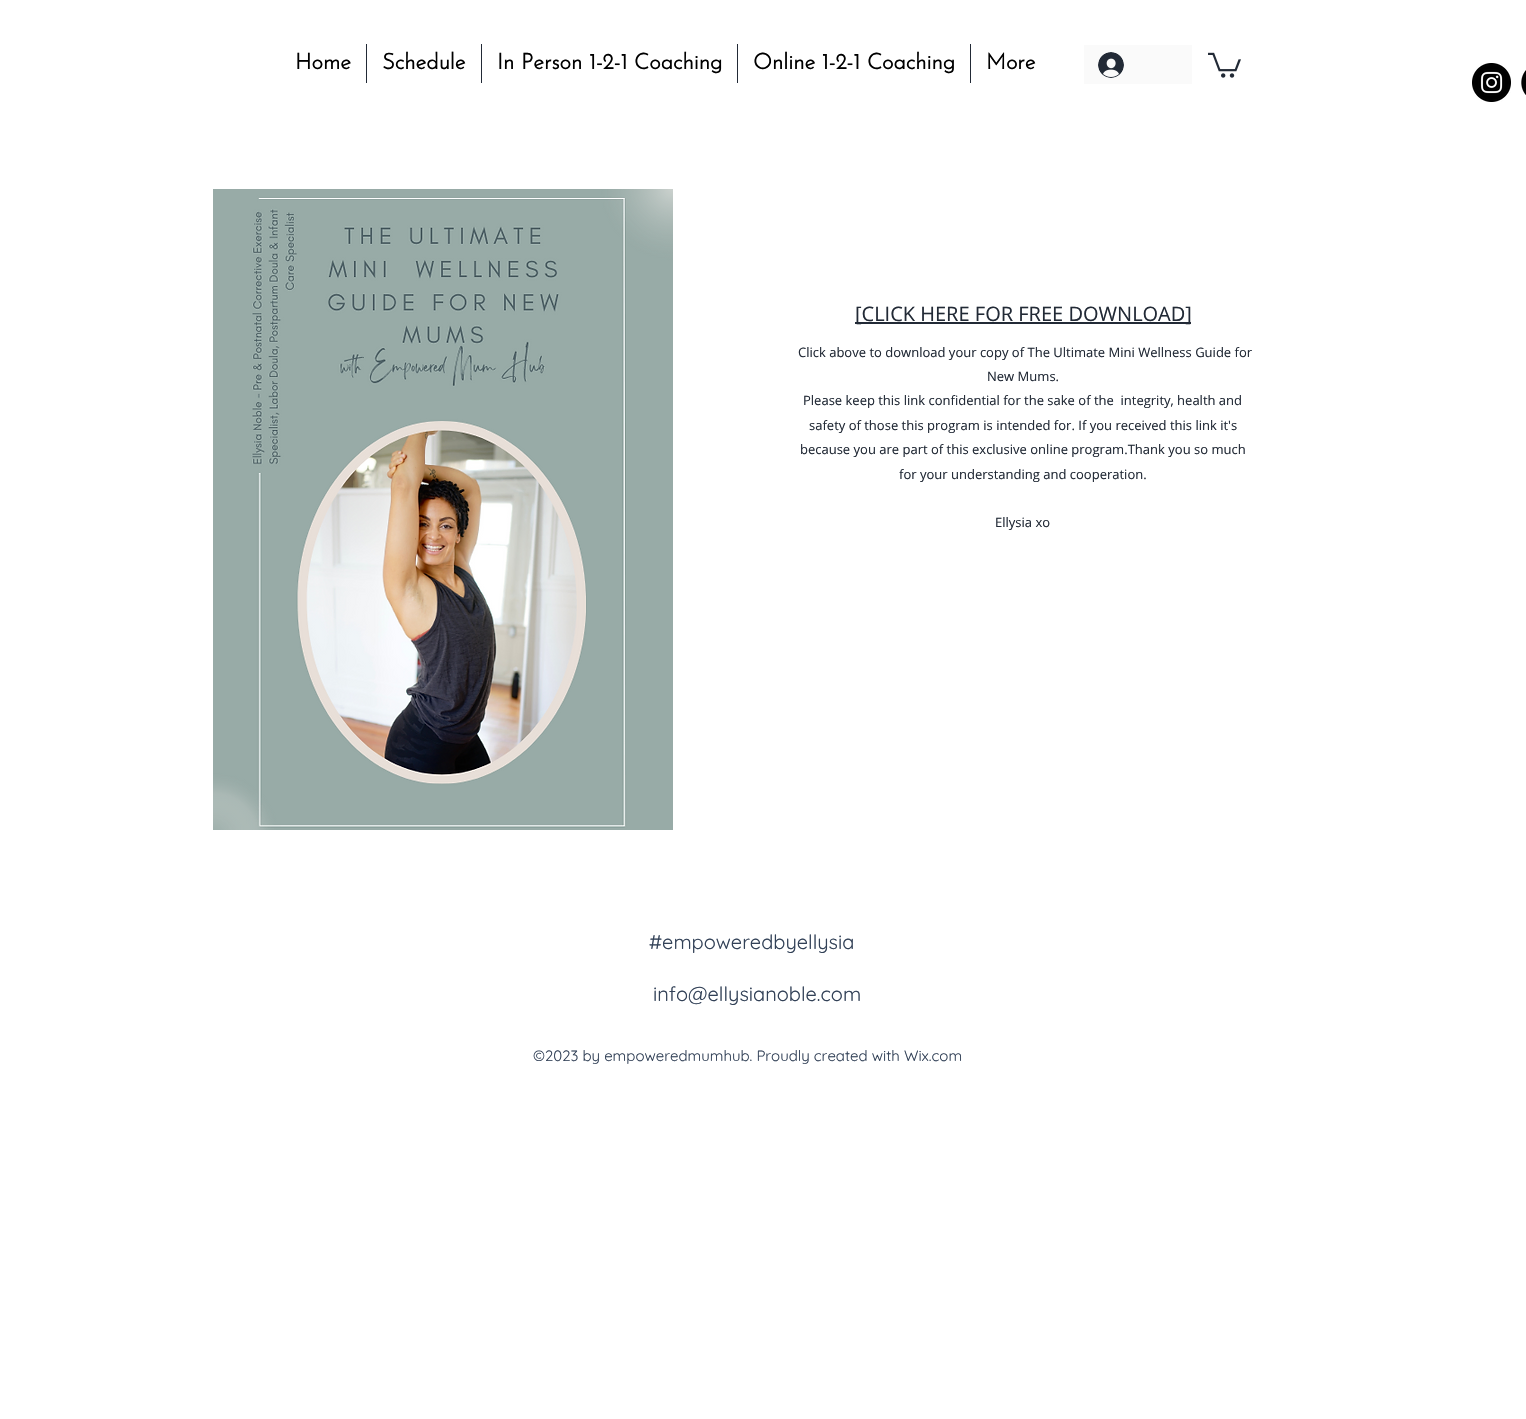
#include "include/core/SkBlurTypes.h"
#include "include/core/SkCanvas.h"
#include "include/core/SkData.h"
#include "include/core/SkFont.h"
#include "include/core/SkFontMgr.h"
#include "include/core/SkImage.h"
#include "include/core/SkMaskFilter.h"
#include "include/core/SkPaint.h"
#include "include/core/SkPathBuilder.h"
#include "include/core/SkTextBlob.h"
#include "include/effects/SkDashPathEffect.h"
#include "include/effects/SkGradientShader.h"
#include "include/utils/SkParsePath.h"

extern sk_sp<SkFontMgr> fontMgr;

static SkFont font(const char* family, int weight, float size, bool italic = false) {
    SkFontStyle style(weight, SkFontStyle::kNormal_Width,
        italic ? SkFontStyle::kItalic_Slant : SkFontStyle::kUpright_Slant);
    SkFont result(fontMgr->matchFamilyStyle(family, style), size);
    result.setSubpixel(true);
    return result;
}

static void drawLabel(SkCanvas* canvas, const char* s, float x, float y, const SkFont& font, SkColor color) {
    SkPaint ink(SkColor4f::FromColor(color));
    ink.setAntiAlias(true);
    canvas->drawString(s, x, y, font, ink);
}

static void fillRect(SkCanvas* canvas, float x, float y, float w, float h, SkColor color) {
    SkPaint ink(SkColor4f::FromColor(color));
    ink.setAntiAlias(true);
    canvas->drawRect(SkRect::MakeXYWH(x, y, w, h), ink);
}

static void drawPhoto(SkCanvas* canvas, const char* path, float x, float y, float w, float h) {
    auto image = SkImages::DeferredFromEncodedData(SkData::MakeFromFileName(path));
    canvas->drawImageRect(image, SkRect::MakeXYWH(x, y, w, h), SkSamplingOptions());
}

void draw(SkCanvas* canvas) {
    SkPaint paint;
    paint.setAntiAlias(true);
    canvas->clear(0xFFFFFFFF);
    SkFont font1 = font("Josefin Sans", 700, 22);
    drawLabel(canvas, "Home", 295, 69, font1, 0xFF000000);
    fillRect(canvas, 366, 44, 1, 39, 0xFF222A36);
    drawLabel(canvas, "Schedule", 382, 69, font1, 0xFF000000);
    fillRect(canvas, 481, 44, 1, 39, 0xFF222A36);
    drawLabel(canvas, "In Person 1-2-1 Coaching", 497, 69, font1, 0xFF000000);
    fillRect(canvas, 737, 44, 1, 39, 0xFF222A36);
    drawLabel(canvas, "Online 1-2-1 Coaching", 753, 69, font1, 0xFF000000);
    fillRect(canvas, 970, 44, 1, 39, 0xFF222A36);
    drawLabel(canvas, "More", 986, 69, font1, 0xFF000000);
    fillRect(canvas, 1084, 45, 108, 39, 0xFFFAFAFA);
    drawPhoto(canvas, "assets/img1.png", 1098, 52, 26, 26);
    drawPhoto(canvas, "assets/img2.png", 1208, 52, 33, 26);
    drawPhoto(canvas, "assets/img3.png", 1472, 63, 39, 39);
    drawPhoto(canvas, "assets/img4.png", 1521, 70, 5, 25);
    drawPhoto(canvas, "assets/img5.png", 213, 189, 460, 641);
    fillRect(canvas, 855, 322, 336, 2, 0xFF222A36);
    SkFont font2 = font("Open Sans", 400, 20);
    drawLabel(canvas, "[CLICK HERE FOR FREE DOWNLOAD]", 855, 321, font2, 0xFF222A36);
    SkFont font3 = font("Open Sans", 400, 13);
    drawLabel(canvas, "Click above to download your copy of The Ultimate Mini Wellness Guide for", 798, 357, font3, 0xFF222A36);
    drawLabel(canvas, "New Mums.", 987, 381, font3, 0xFF222A36);
    drawLabel(canvas, "Please keep this link confidential for the sake of the  integrity, health and", 803, 405, font3, 0xFF222A36);
    drawLabel(canvas, "safety of those this program is intended for. If you received this link it's", 809, 430, font3, 0xFF222A36);
    drawLabel(canvas, "because you are part of this exclusive online program.Thank you so much", 800, 454, font3, 0xFF222A36);
    drawLabel(canvas, "for your understanding and cooperation.", 899, 479, font3, 0xFF222A36);
    drawLabel(canvas, "Ellysia xo", 995, 527, font3, 0xFF222A36);
    SkFont font4 = font("Quicksand", 400, 20);
    drawLabel(canvas, "#empoweredbyellysia", 649, 949, font4, 0xFF324157);
    drawLabel(canvas, "info@ellysianoble.com", 653, 1001, font4, 0xFF324157);
    SkFont font5 = font("Quicksand", 400, 15);
    drawLabel(canvas, "©2023 by empoweredmumhub. Proudly created with Wix.com", 533, 1061, font5, 0xFF324157);
}
